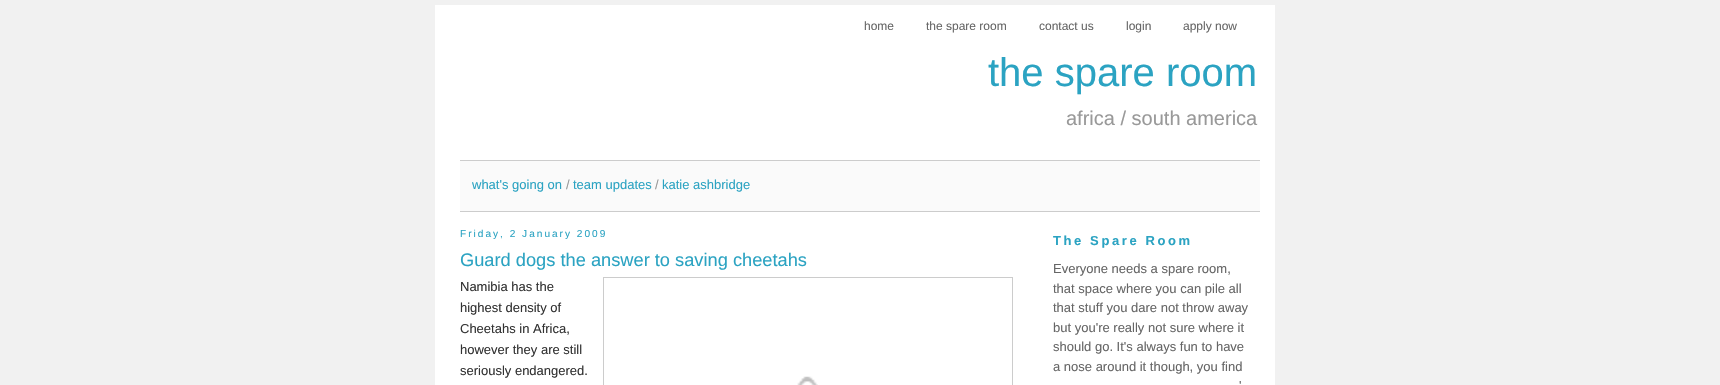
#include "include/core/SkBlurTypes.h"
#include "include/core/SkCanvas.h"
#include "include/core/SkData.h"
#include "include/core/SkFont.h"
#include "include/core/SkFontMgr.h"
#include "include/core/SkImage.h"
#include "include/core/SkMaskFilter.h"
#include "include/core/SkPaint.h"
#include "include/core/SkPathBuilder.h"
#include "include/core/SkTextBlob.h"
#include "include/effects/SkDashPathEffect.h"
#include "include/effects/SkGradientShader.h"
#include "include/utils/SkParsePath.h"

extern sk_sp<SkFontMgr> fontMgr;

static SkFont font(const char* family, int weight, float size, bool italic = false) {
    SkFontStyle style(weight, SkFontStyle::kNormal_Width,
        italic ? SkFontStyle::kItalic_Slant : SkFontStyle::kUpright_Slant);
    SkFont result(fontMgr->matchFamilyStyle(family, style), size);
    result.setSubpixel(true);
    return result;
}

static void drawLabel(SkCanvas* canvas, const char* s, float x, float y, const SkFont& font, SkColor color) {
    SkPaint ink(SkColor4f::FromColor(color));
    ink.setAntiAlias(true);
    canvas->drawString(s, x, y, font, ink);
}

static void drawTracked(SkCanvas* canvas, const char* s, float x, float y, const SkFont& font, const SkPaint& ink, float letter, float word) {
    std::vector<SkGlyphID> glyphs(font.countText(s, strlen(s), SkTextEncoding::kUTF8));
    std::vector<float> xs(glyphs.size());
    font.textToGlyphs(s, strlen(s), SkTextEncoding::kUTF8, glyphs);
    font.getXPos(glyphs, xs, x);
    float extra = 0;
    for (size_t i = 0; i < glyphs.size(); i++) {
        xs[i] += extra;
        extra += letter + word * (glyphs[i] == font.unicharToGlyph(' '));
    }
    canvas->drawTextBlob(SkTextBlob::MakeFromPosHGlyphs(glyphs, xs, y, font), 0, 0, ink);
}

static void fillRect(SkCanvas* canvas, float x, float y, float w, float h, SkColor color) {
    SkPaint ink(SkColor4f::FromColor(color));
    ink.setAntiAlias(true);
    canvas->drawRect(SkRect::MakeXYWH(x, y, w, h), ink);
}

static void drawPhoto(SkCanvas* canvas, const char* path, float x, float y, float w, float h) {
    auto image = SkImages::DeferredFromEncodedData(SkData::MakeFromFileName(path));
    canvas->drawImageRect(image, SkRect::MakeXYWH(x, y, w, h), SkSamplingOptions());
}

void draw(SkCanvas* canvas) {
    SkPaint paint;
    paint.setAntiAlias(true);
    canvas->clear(0xFFF1F1F1);
    fillRect(canvas, 435, 5, 840, 380, 0xFFFFFFFF);
    SkFont font1 = font("Liberation Sans", 400, 12);
    drawLabel(canvas, "home", 864, 30, font1, 0xFF666666);
    drawLabel(canvas, "the spare room", 926, 30, font1, 0xFF666666);
    drawLabel(canvas, "contact us", 1039, 30, font1, 0xFF666666);
    drawLabel(canvas, "login", 1126, 30, font1, 0xFF666666);
    drawLabel(canvas, "apply now", 1183, 30, font1, 0xFF666666);
    SkFont font2 = font("Liberation Sans", 400, 40);
    drawLabel(canvas, "the spare room", 988, 86, font2, 0xFF2BA3C2);
    SkFont font3 = font("Liberation Sans", 400, 20);
    drawLabel(canvas, "africa / south america", 1066, 125, font3, 0xFF999999);
    fillRect(canvas, 460, 161, 800, 50, 0xFFFAFAFA);
    fillRect(canvas, 460, 160, 800, 1, 0xFFCCCCCC);
    fillRect(canvas, 460, 211, 800, 1, 0xFFCCCCCC);
    SkFont font4 = font("Liberation Sans", 400, 13);
    drawLabel(canvas, "what's going on", 472, 189, font4, 0xFF2BA3C2);
    drawLabel(canvas, "/", 566, 189, font4, 0xFF999999);
    drawLabel(canvas, "team updates", 573, 189, font4, 0xFF2BA3C2);
    drawLabel(canvas, "/", 655, 189, font4, 0xFF999999);
    drawLabel(canvas, "katie ashbridge", 662, 189, font4, 0xFF2BA3C2);
    SkFont font5 = font("Liberation Sans", 400, 10.1f);
    paint.setColor(0xFF2BA3C2);
    drawTracked(canvas, "Friday, 2 January 2009", 460, 237, font5, paint, 2, 0);
    SkFont font6 = font("Liberation Sans", 400, 18.25f);
    drawLabel(canvas, "Guard dogs the answer to saving cheetahs", 460, 266, font6, 0xFF2BA3C2);
    drawLabel(canvas, "Namibia has the", 460, 291, font4, 0xFF333333);
    paint.setStroke(true);
    paint.setStrokeWidth(1);
    paint.setColor(0xFFCCCCCC);
    canvas->drawRect(SkRect::MakeXYWH(603.5f, 277.5f, 409, 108), paint);
    drawPhoto(canvas, "assets/img1.png", 797, 376, 21, 9);
    drawLabel(canvas, "highest density of", 460, 312, font4, 0xFF333333);
    drawLabel(canvas, "Cheetahs in Africa,", 460, 333, font4, 0xFF333333);
    drawLabel(canvas, "however they are still", 460, 354, font4, 0xFF333333);
    drawLabel(canvas, "seriously endangered.", 460, 375, font4, 0xFF333333);
    SkFont font7 = font("Liberation Sans", 700, 13);
    paint.setStroke(false);
    paint.setColor(0xFF2BA3C2);
    drawTracked(canvas, "The Spare Room", 1053, 245, font7, paint, 2.6f, 0);
    drawLabel(canvas, "Everyone needs a spare room,", 1053, 273, font4, 0xFF666666);
    drawLabel(canvas, "that space where you can pile all", 1053, 293, font4, 0xFF666666);
    drawLabel(canvas, "that stuff you dare not throw away", 1053, 312, font4, 0xFF666666);
    drawLabel(canvas, "but you're really not sure where it", 1053, 332, font4, 0xFF666666);
    drawLabel(canvas, "should go. It's always fun to have", 1053, 351, font4, 0xFF666666);
    drawLabel(canvas, "a nose around it though, you find", 1053, 371, font4, 0xFF666666);
    drawLabel(canvas, "'", 1239, 390, font4, 0xFF666666);
}
